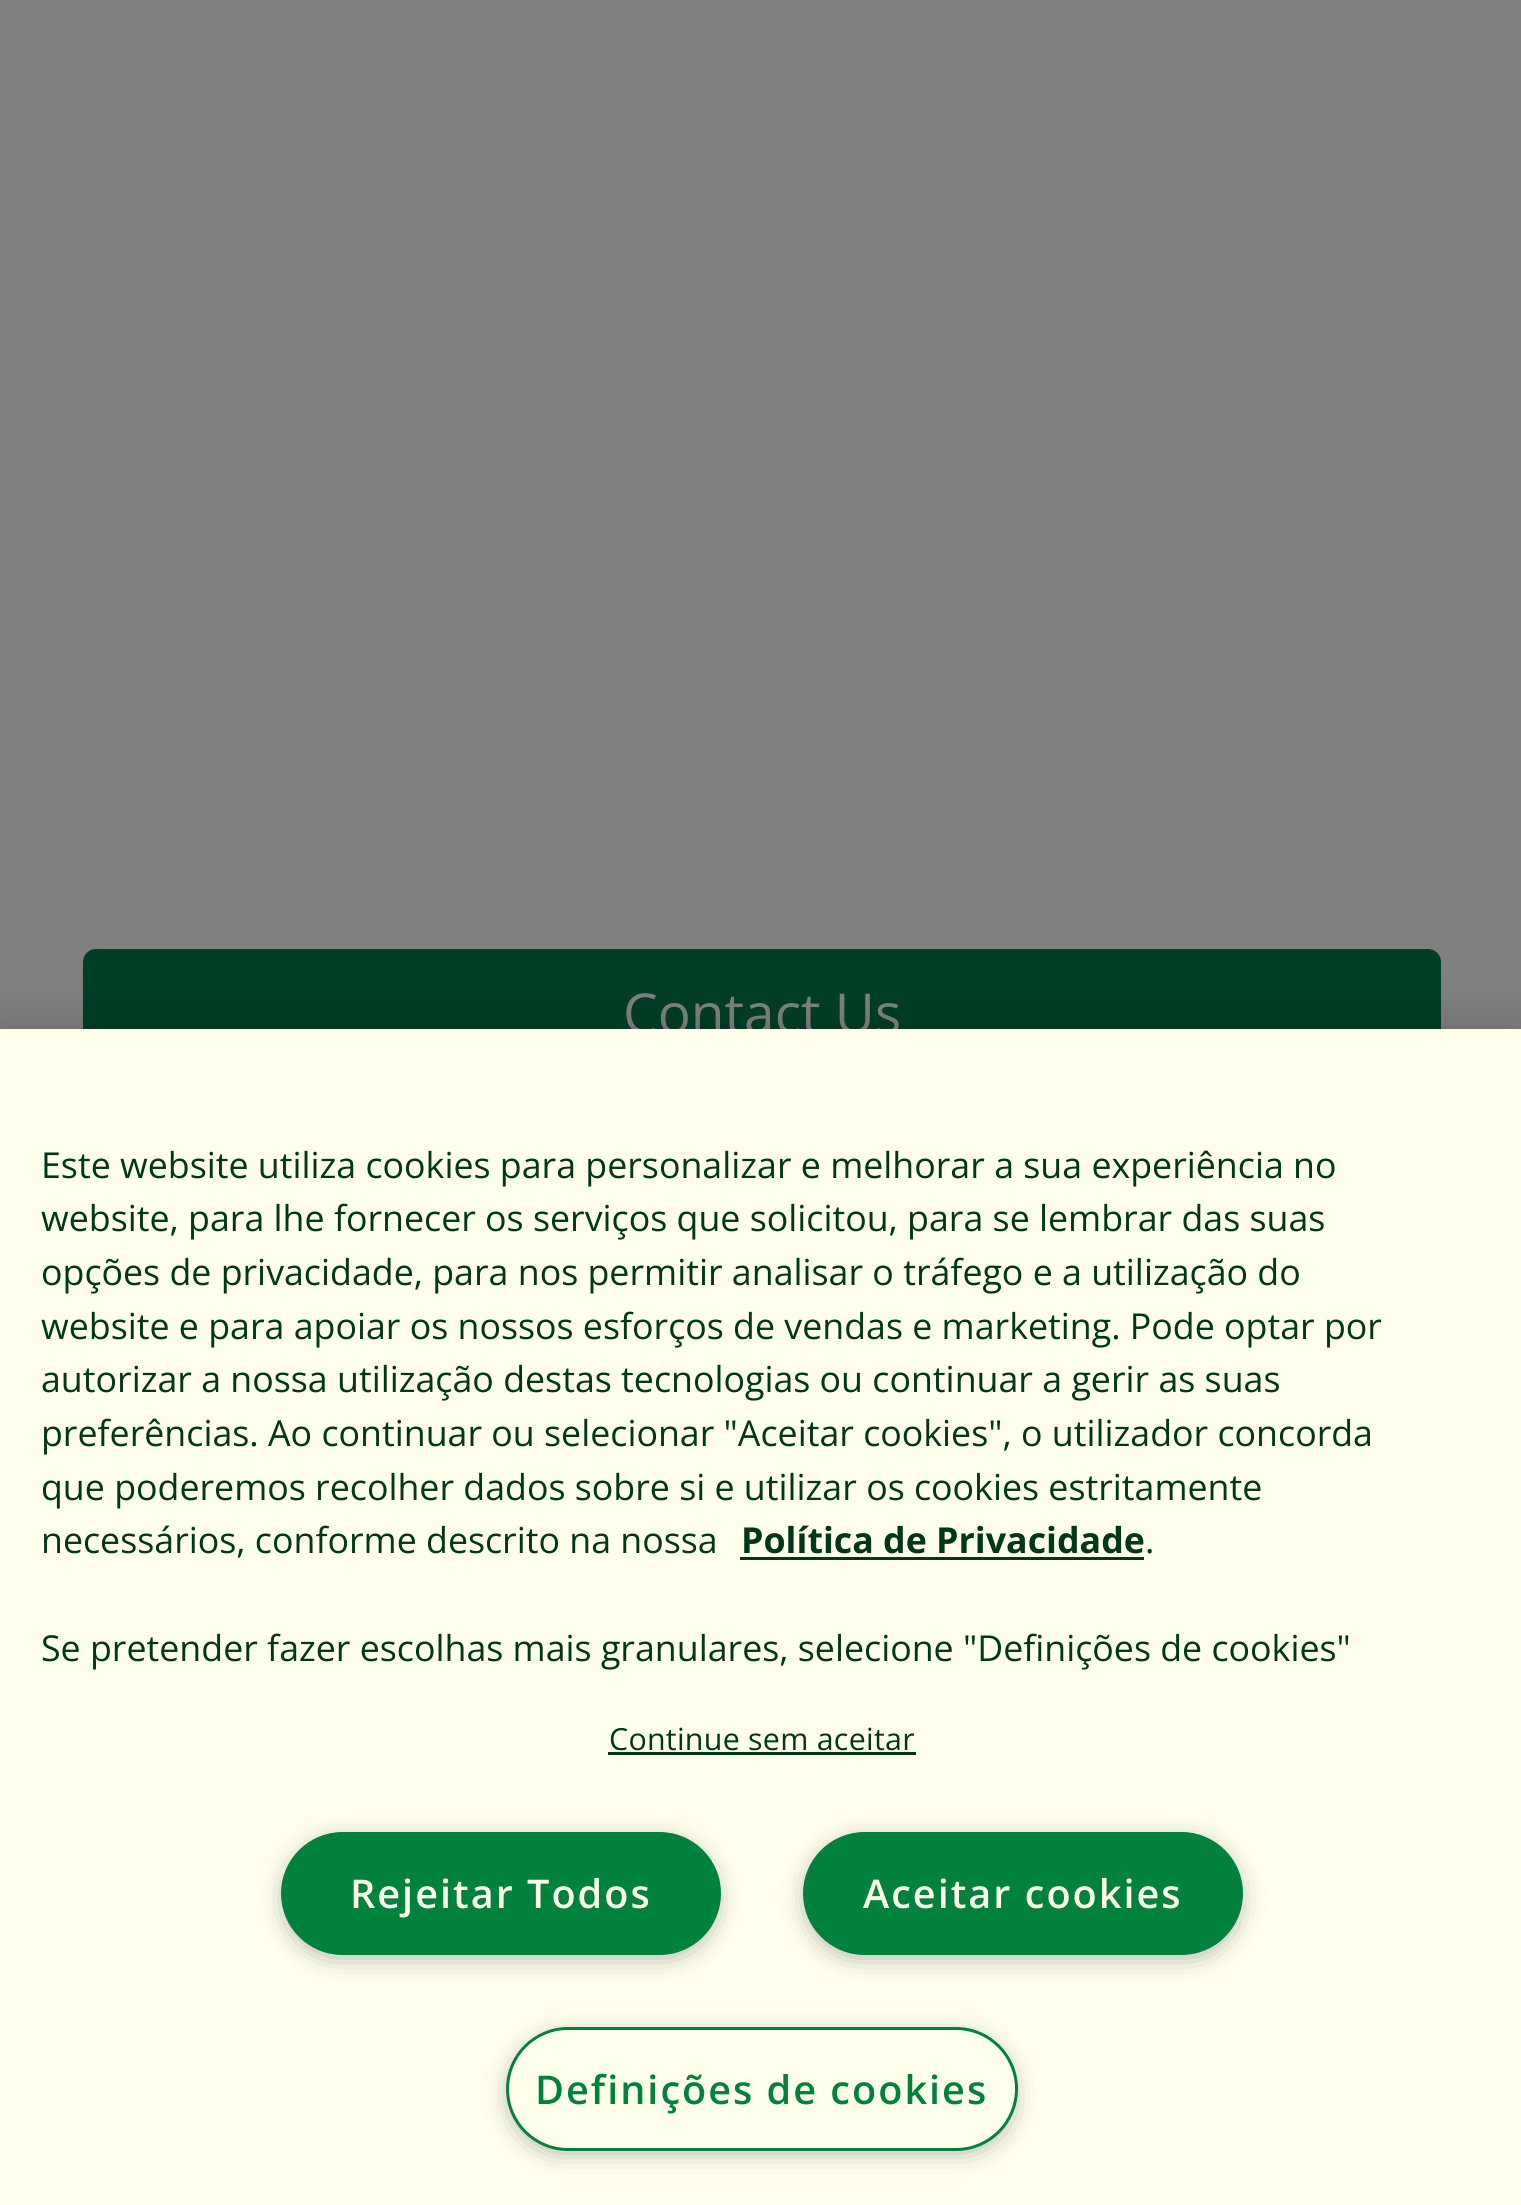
#include <cairo.h>
#include <math.h>
#include <stddef.h>

static cairo_t *c;
static void C(unsigned color){cairo_set_source_rgb(c, (color >> 16) / 255.0, (color >> 8 & 255) / 255.0, (color & 255) / 255.0);}
static void F(const char *family, double size, int italic, int bold){cairo_select_font_face(c, family, italic ? CAIRO_FONT_SLANT_ITALIC : CAIRO_FONT_SLANT_NORMAL,bold ? CAIRO_FONT_WEIGHT_BOLD : CAIRO_FONT_WEIGHT_NORMAL);cairo_set_font_size(c, size);}
static void T(double x, double y, const char *s){cairo_move_to(c, x, y);cairo_show_text(c, s);}
static void L(double x, double y, const char *s, double letter, double word){cairo_move_to(c, x, y);while (*s) {char ch[5] = {0};int n = 0;do ch[n++] = *s++; while ((*s & 0xC0) == 0x80);cairo_show_text(c, ch);cairo_rel_move_to(c, letter + word * (*ch == ' '), 0);}}
static void R(double x, double y, double w, double h){cairo_rectangle(c, x, y, w, h);cairo_fill(c);}
static void Q(double x, double y, double w, double h, double r){cairo_new_sub_path(c);cairo_arc(c, x + w - r, y + h - r, r, 0, M_PI / 2);cairo_arc(c, x + r, y + h - r, r, M_PI / 2, M_PI);cairo_arc(c, x + r, y + r, r, M_PI, 1.5 * M_PI);cairo_arc(c, x + w - r, y + r, r, 1.5 * M_PI, 2 * M_PI);cairo_close_path(c);}
static void S(double x, double y, double w, double h, double r, double blur, double alpha){cairo_push_group_with_content(c, CAIRO_CONTENT_ALPHA);cairo_set_operator(c, CAIRO_OPERATOR_SOURCE);for (int i = 15; i >= -15 && fmin(w, h) + blur * i / 3 > 0; i -= 2) {double e = blur * i / 6;cairo_set_source_rgba(c, 0, 0, 0, alpha * erfc((i - 1) / 8.5) / 2);Q(x - e, y - e, w + 2 * e, h + 2 * e, fmax(0, fmin(r + e + blur * .6, fmin(w, h) / 2 + e)));cairo_fill(c);}cairo_pattern_t *soft = cairo_pop_group(c);cairo_mask(c, soft);cairo_pattern_destroy(soft);}
int main(void) {
cairo_surface_t *surface = cairo_image_surface_create(CAIRO_FORMAT_RGB24, 1521, 2205);
c = cairo_create(surface);
cairo_font_options_t *options = cairo_font_options_create();
cairo_font_options_set_hint_metrics(options, CAIRO_HINT_METRICS_OFF);
cairo_font_options_set_hint_style(options, CAIRO_HINT_STYLE_NONE);
cairo_set_font_options(c, options);
cairo_set_miter_limit(c, 4);
C(0x808080);
cairo_paint(c);
C(0x003e26);
Q(80,946,1364,135,16);
cairo_fill_preserve(c);
C(0x808080);
cairo_set_line_width(c,6);
cairo_stroke(c);
F("Open Sans",55,0,0);
T(623,1033,"Contact Us");
C(0x000000);
S(0,1029,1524,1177,0,25,.2);
C(0xffffeb);
R(0,1029,1521,1176);
F("Open Sans",35.75,0,0);
C(0x003719);
T(41,1178,"Este website utiliza cookies para personalizar e melhorar a sua experiência no");
T(41,1231,"website, para lhe fornecer os serviços que solicitou, para se lembrar das suas");
T(41,1285,"opções de privacidade, para nos permitir analisar o tráfego e a utilização do");
T(41,1339,"website e para apoiar os nossos esforços de vendas e marketing. Pode optar por");
T(41,1392,"autorizar a nossa utilização destas tecnologias ou continuar a gerir as suas");
T(41,1446,"preferências. Ao continuar ou selecionar \"Aceitar cookies\", o utilizador concorda");
T(41,1500,"que poderemos recolher dados sobre si e utilizar os cookies estritamente");
T(41,1553,"necessários, conforme descrito na nossa");
F("Open Sans",35.75,0,1);
T(741,1553,"Política de Privacidade");
R(740,1557,404,3);
F("Open Sans",35.75,0,0);
T(1145,1553,".");
T(41,1661,"Se pretender fazer escolhas mais granulares, selecione \"Definições de cookies\"");
F("Open Sans",30.4,0,0);
L(609,1750,"Continue sem aceitar",.25,0);
R(608,1752,308,3);
C(0x999999);
S(289,1845,423,108,54,14,1);
C(0x00823c);
Q(282.5,1833.5,437,120,60);
cairo_fill_preserve(c);
cairo_set_line_width(c,3);
cairo_stroke(c);
F("Open Sans SemiBold",39.6,0,0);
C(0xffffeb);
L(350,1908,"Rejeitar Todos",2,0);
C(0x999999);
S(811,1845,424,108,54,14,1);
C(0x00823c);
Q(804.5,1833.5,437,120,60);
cairo_fill_preserve(c);
cairo_stroke(c);
C(0xffffeb);
L(863,1908,"Aceitar cookies",2,0);
C(0x999999);
S(514,2041,495,107,53.5,14,1);
C(0xffffeb);
Q(507.5,2028.5,509,121,60.5);
cairo_fill_preserve(c);
C(0x00823c);
cairo_stroke(c);
L(535,2104,"Definições de cookies",2,0);
cairo_surface_write_to_png(surface, "o.png");
cairo_font_options_destroy(options);
cairo_destroy(c);
cairo_surface_destroy(surface);
return 0;
}
